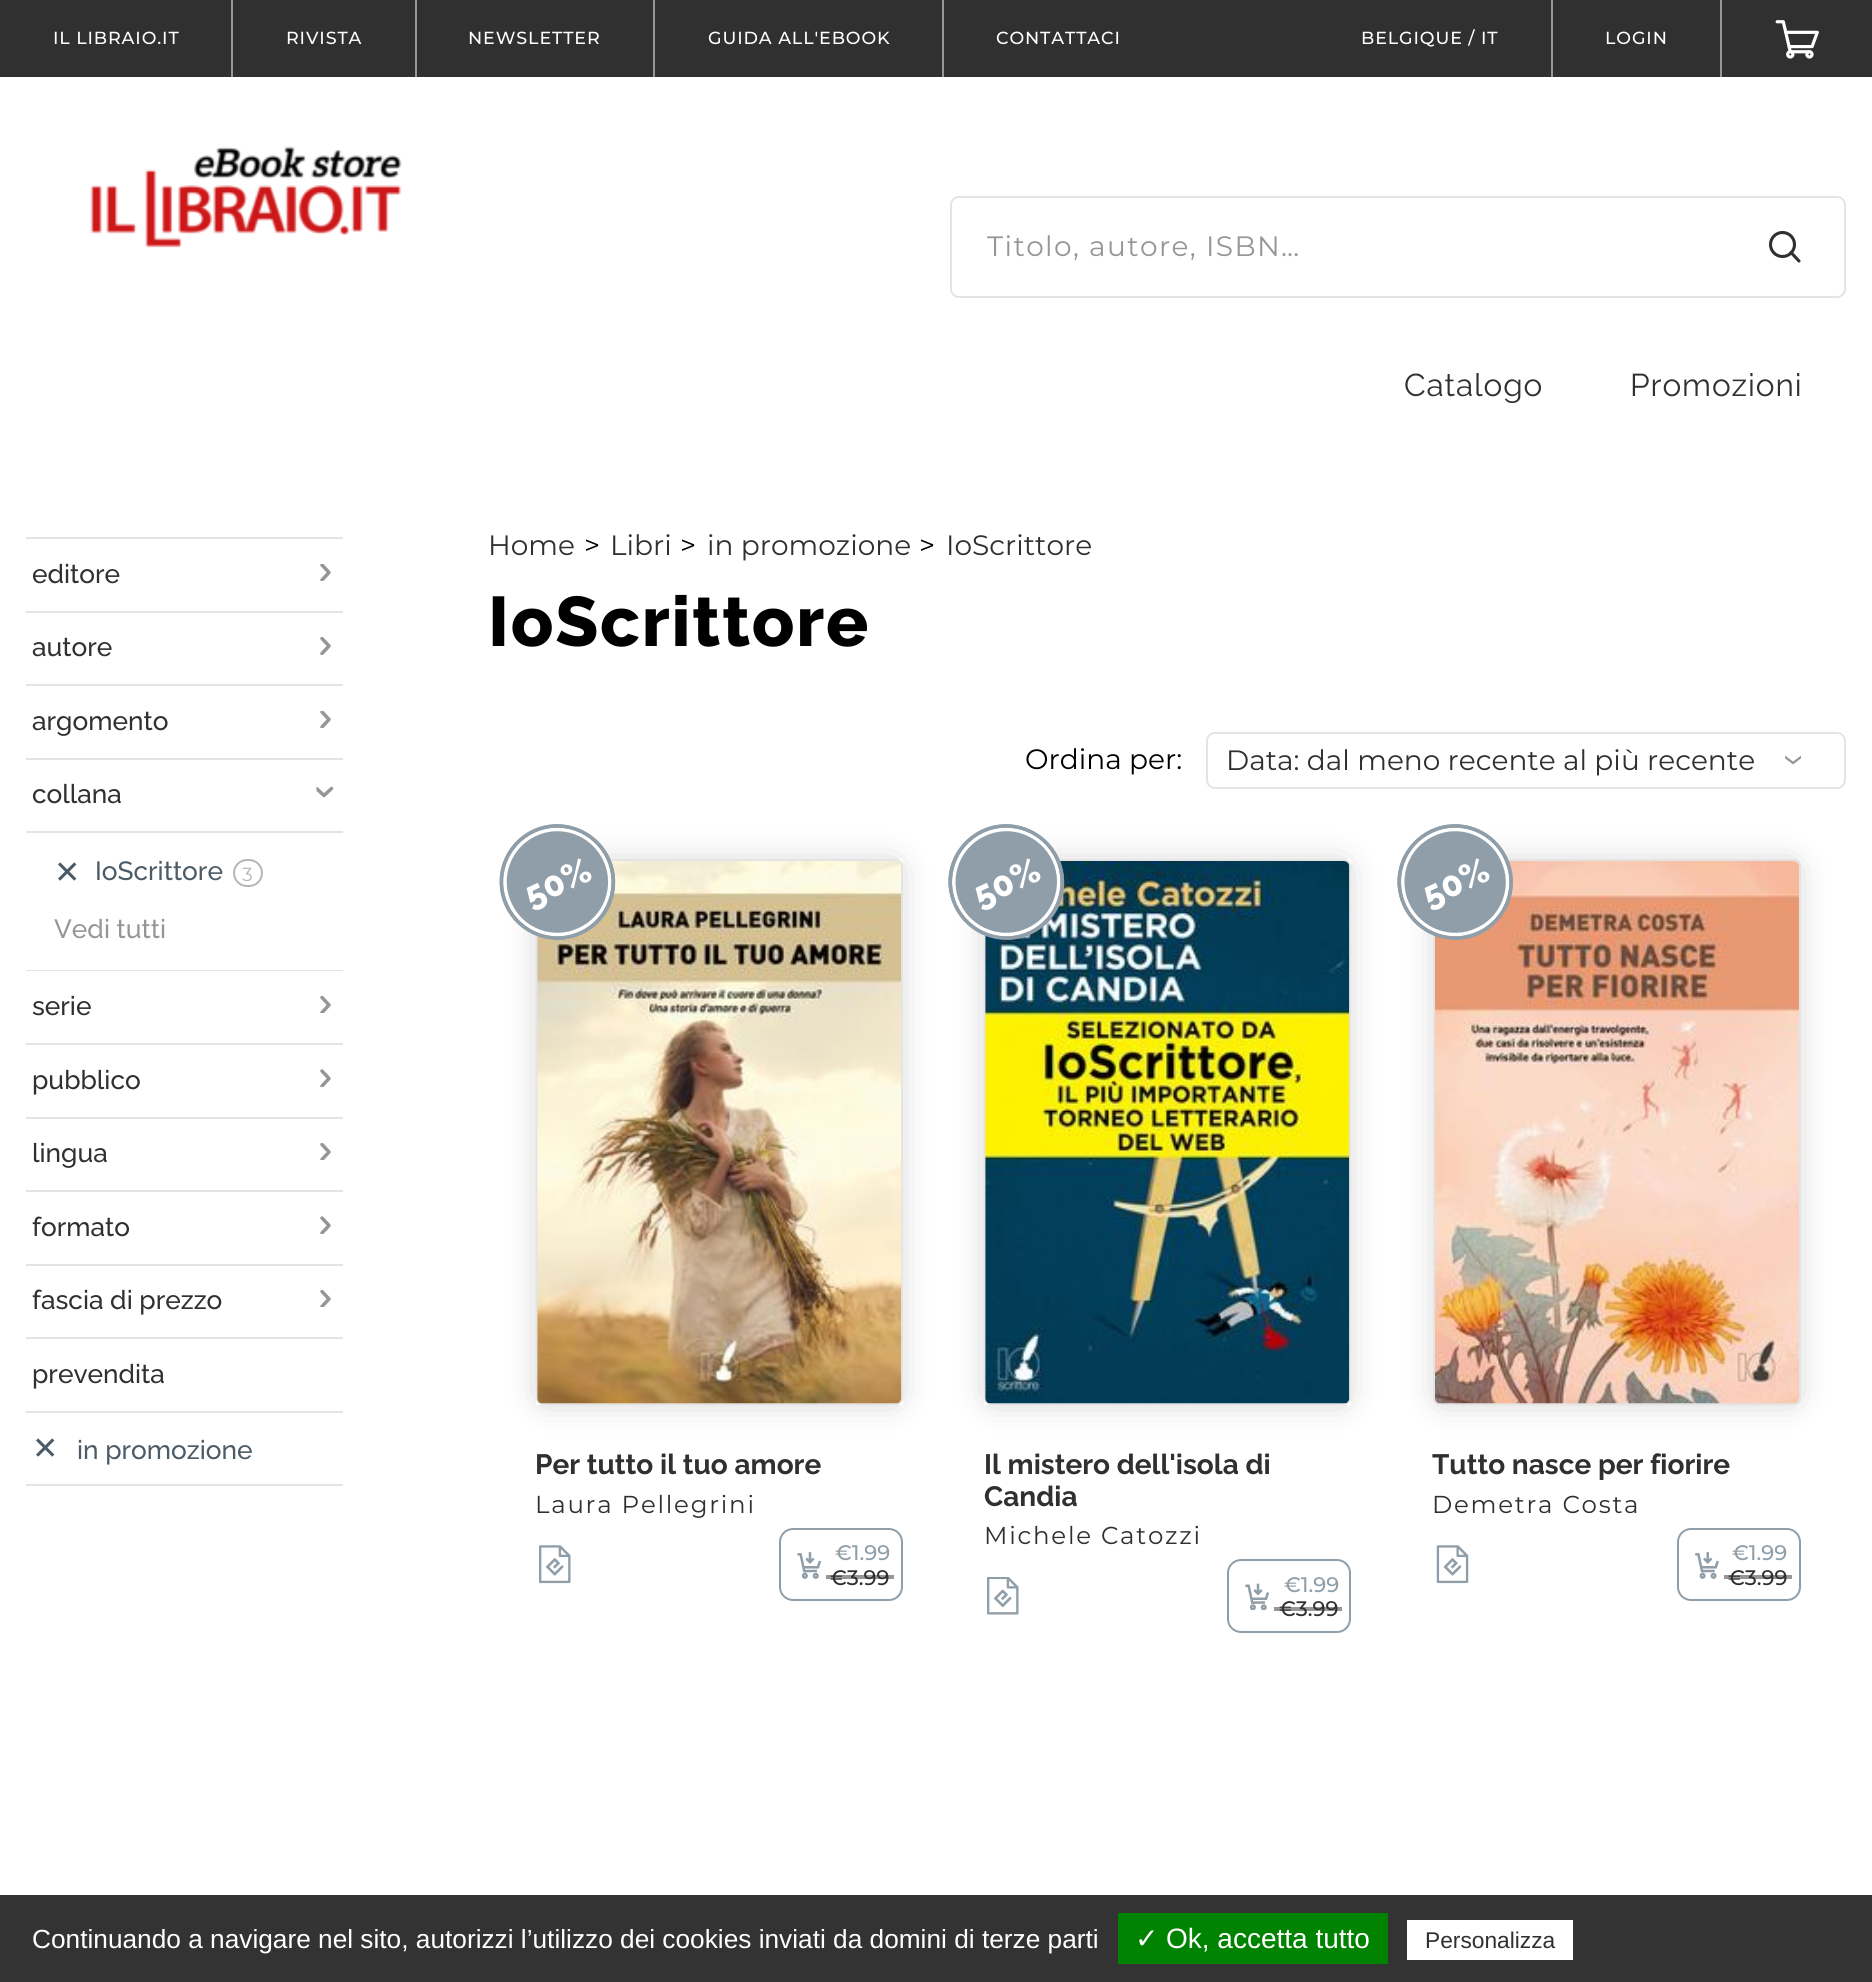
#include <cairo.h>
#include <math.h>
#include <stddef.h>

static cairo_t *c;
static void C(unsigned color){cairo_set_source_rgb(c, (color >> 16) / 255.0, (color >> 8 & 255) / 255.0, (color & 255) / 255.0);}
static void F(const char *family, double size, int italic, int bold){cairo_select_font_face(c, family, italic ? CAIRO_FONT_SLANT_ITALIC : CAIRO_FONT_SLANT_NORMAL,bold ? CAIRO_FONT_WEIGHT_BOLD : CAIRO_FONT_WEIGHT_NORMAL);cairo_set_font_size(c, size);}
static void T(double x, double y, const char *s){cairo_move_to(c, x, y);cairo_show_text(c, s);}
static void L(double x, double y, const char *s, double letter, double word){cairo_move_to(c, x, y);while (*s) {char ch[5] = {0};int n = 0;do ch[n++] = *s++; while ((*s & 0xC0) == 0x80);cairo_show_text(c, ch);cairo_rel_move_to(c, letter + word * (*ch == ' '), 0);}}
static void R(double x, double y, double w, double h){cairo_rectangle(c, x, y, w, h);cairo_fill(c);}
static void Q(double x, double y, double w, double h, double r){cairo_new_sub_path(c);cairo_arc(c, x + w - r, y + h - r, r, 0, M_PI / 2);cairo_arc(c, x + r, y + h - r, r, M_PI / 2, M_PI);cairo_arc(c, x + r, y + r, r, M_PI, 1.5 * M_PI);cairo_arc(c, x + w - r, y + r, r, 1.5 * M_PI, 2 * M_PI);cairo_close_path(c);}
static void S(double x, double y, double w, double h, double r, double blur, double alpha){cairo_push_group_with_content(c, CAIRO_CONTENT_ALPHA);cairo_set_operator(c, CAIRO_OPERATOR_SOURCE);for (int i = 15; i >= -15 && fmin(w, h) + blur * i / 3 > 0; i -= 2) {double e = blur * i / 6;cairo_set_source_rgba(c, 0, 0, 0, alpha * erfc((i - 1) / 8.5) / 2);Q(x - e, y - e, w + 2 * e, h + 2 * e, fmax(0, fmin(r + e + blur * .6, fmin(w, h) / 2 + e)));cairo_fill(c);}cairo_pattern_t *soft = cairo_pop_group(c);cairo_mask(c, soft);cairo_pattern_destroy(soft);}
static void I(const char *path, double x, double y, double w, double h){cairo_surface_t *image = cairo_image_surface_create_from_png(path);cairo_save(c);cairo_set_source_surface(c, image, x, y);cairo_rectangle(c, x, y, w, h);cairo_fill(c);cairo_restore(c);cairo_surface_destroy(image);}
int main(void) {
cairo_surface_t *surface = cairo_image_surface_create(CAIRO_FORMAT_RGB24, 1872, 1982);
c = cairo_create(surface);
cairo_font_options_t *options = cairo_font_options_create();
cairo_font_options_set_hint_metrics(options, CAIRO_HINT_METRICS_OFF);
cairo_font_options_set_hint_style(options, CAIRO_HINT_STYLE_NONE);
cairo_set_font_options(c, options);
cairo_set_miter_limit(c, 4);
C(0xffffff);
cairo_paint(c);
C(0x303030);
R(0,0,1872,77);
F("Montserrat Medium",17.5,0,0);
C(0xffffff);
L(53,44,"IL LIBRAIO.IT",.9,0);
C(0x969696);
R(231,0,2,77);
C(0xffffff);
L(286,44,"RIVISTA",.9,0);
C(0x969696);
R(415,0,2,77);
C(0xffffff);
L(468,44,"NEWSLETTER",.9,0);
C(0x969696);
R(653,0,2,77);
C(0xffffff);
L(708,44,"GUIDA ALL'EBOOK",.9,0);
C(0x969696);
R(942,0,2,77);
C(0xffffff);
L(996,44,"CONTATTACI",.9,0);
L(1361,44,"BELGIQUE / IT",.9,0);
C(0x969696);
R(1551,0,2,77);
C(0xffffff);
L(1605,44,"LOGIN",.9,0);
C(0x969696);
R(1720,0,2,77);
I("1.png",1775,20,44,39);
I("2.png",90,146,312,102);
Q(951,197,894,100,8);
C(0xe4e4e4);
cairo_stroke(c);
F("Montserrat",28,0,0);
C(0x969696);
L(987,256,"Titolo, autore, ISBN…",1.4,0);
cairo_new_path(c);
cairo_arc(c,1782.5,244.5,12,0,2 * M_PI);
C(0x303030);
cairo_set_line_width(c,3.1);
cairo_stroke(c);
cairo_new_path(c);
cairo_move_to(c,1799,261);
cairo_line_to(c,1791,252.5);
cairo_set_line_cap(c,CAIRO_LINE_CAP_ROUND);
cairo_set_line_join(c,CAIRO_LINE_JOIN_ROUND);
cairo_stroke(c);
F("Raleway",31.5,0,0);
L(1404,396,"Catalogo",.9,0);
L(1630,396,"Promozioni",.9,0);
C(0xe4e4e4);
R(26,537,317,2);
R(26,611,317,2);
F("Raleway Medium",26.25,0,0);
C(0x303030);
T(32,583,"editore");
cairo_save(c);
cairo_rectangle(c,317,564,17,17);
cairo_clip(c);
cairo_new_path(c);
cairo_move_to(c,322,565);
cairo_line_to(c,329,572.5);
cairo_line_to(c,322,580);
C(0x969696);
cairo_set_line_width(c,3.5);
cairo_stroke(c);
cairo_restore(c);
C(0xe4e4e4);
R(26,684,317,2);
C(0x303030);
T(32,656,"autore");
cairo_save(c);
cairo_rectangle(c,317,637,17,18);
cairo_clip(c);
cairo_new_path(c);
cairo_move_to(c,322,638.5);
cairo_line_to(c,329,646);
cairo_line_to(c,322,653.5);
C(0x969696);
cairo_set_line_width(c,3.5);
cairo_stroke(c);
cairo_restore(c);
C(0xe4e4e4);
R(26,758,317,2);
C(0x303030);
T(32,730,"argomento");
cairo_save(c);
cairo_rectangle(c,317,711,17,17);
cairo_clip(c);
cairo_new_path(c);
cairo_move_to(c,322,712);
cairo_line_to(c,329,719.5);
cairo_line_to(c,322,727);
C(0x969696);
cairo_set_line_width(c,3.5);
cairo_stroke(c);
cairo_restore(c);
C(0xe4e4e4);
R(26,831,317,2);
C(0x303030);
T(32,803,"collana");
cairo_save(c);
cairo_new_path(c);
cairo_move_to(c,334,783);
cairo_line_to(c,334,800.5);
cairo_line_to(c,316.5,800.5);
cairo_line_to(c,316.5,783);
cairo_close_path(c);
cairo_clip(c);
cairo_new_path(c);
cairo_move_to(c,331.5,788.5);
cairo_line_to(c,324,795.5);
cairo_line_to(c,316.5,788.5);
C(0x969696);
cairo_set_line_width(c,3.5);
cairo_stroke(c);
cairo_restore(c);
C(0xe4e4e4);
R(26,970,317,1);
F("DejaVu Sans",31.5,0,0);
C(0x4c5b65);
T(54,883,"✕");
F("Raleway Medium",26.25,0,0);
T(95,880,"IoScrittore");
Q(234,860,28,26,13);
C(0xb6b6b6);
cairo_set_line_width(c,2);
cairo_set_line_cap(c,CAIRO_LINE_CAP_BUTT);
cairo_set_line_join(c,CAIRO_LINE_JOIN_MITER);
cairo_stroke(c);
F("Montserrat",19,0,0);
T(242,881,"3");
F("Raleway Medium",26.25,0,0);
C(0x969696);
T(54,938,"Vedi tutti");
C(0xe4e4e4);
R(26,1043,317,2);
C(0x303030);
T(32,1015,"serie");
cairo_save(c);
cairo_rectangle(c,317,996,17,17);
cairo_clip(c);
cairo_new_path(c);
cairo_move_to(c,322,997.5);
cairo_line_to(c,329,1005);
cairo_line_to(c,322,1012.5);
C(0x969696);
cairo_set_line_width(c,3.5);
cairo_set_line_cap(c,CAIRO_LINE_CAP_ROUND);
cairo_set_line_join(c,CAIRO_LINE_JOIN_ROUND);
cairo_stroke(c);
cairo_restore(c);
C(0xe4e4e4);
R(26,1117,317,2);
C(0x303030);
T(32,1089,"pubblico");
cairo_save(c);
cairo_rectangle(c,317,1069,17,18);
cairo_clip(c);
cairo_new_path(c);
cairo_move_to(c,322,1071);
cairo_line_to(c,329,1078.5);
cairo_line_to(c,322,1086);
C(0x969696);
cairo_set_line_width(c,3.5);
cairo_set_line_cap(c,CAIRO_LINE_CAP_ROUND);
cairo_set_line_join(c,CAIRO_LINE_JOIN_ROUND);
cairo_stroke(c);
cairo_restore(c);
C(0xe4e4e4);
R(26,1190,317,2);
C(0x303030);
T(32,1162,"lingua");
cairo_save(c);
cairo_rectangle(c,317,1143,17,17);
cairo_clip(c);
cairo_new_path(c);
cairo_move_to(c,322,1144.5);
cairo_line_to(c,329,1152);
cairo_line_to(c,322,1159.5);
C(0x969696);
cairo_set_line_width(c,3.5);
cairo_set_line_cap(c,CAIRO_LINE_CAP_ROUND);
cairo_set_line_join(c,CAIRO_LINE_JOIN_ROUND);
cairo_stroke(c);
cairo_restore(c);
C(0xe4e4e4);
R(26,1264,317,2);
C(0x303030);
T(32,1236,"formato");
cairo_save(c);
cairo_rectangle(c,317,1216,17,18);
cairo_clip(c);
cairo_new_path(c);
cairo_move_to(c,322,1218);
cairo_line_to(c,329,1225.5);
cairo_line_to(c,322,1233);
C(0x969696);
cairo_set_line_width(c,3.5);
cairo_set_line_cap(c,CAIRO_LINE_CAP_ROUND);
cairo_set_line_join(c,CAIRO_LINE_JOIN_ROUND);
cairo_stroke(c);
cairo_restore(c);
C(0xe4e4e4);
R(26,1337,317,2);
C(0x303030);
T(32,1309,"fascia di prezzo");
cairo_save(c);
cairo_rectangle(c,317,1290,17,17);
cairo_clip(c);
cairo_new_path(c);
cairo_move_to(c,322,1291.5);
cairo_line_to(c,329,1299);
cairo_line_to(c,322,1306.5);
C(0x969696);
cairo_set_line_width(c,3.5);
cairo_set_line_cap(c,CAIRO_LINE_CAP_ROUND);
cairo_set_line_join(c,CAIRO_LINE_JOIN_ROUND);
cairo_stroke(c);
cairo_restore(c);
C(0xe4e4e4);
R(26,1411,317,2);
C(0x303030);
T(32,1383,"prevendita");
C(0xe4e4e4);
R(26,1484,317,2);
F("DejaVu Sans",31.5,0,0);
C(0x4c5b65);
T(32,1459,"✕");
F("Raleway Medium",26.25,0,0);
T(77,1459,"in promozione");
F("Montserrat",28,0,0);
C(0x303030);
T(488,555,"Home");
C(0x000000);
T(584,555,">");
C(0x303030);
T(610,555,"Libri");
C(0x000000);
T(680,555,">");
C(0x303030);
T(707,555,"in promozione");
C(0x000000);
T(919,555,">");
C(0x303030);
T(946,555,"IoScrittore");
F("Raleway ExtraBold",70,0,0);
C(0x000000);
L(488,646,"IoScrittore",1.75,0);
F("Montserrat",28,0,0);
T(1025,769,"Ordina per:");
Q(1207,733,638,55,8);
C(0xe4e4e4);
cairo_stroke(c);
C(0x303030);
T(1226,770,"Data: dal meno recente al più recente");
F("Montserrat",42,0,0);
C(0x969696);
cairo_save(c);
cairo_translate(c,1782,754);
cairo_rotate(c,90 * M_PI / 180);
T(0,0,"›");
cairo_restore(c);
cairo_save(c);
cairo_set_fill_rule(c,CAIRO_FILL_RULE_EVEN_ODD);
cairo_new_path(c);
cairo_move_to(c,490,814);
cairo_line_to(c,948,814);
cairo_line_to(c,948,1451);
cairo_line_to(c,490,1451);
cairo_close_path(c);
cairo_move_to(c,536,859);
cairo_line_to(c,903,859);
cairo_line_to(c,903,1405);
cairo_line_to(c,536,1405);
cairo_close_path(c);
cairo_clip(c);
C(0x000000);
S(544,868,350,529,0,17.5,.25);
cairo_restore(c);
Q(537,860,365,544,6);
C(0xe4e4e4);
cairo_stroke(c);
I("3.png",537,861,365,543);
C(0x8f9ea8);
cairo_new_path(c);
cairo_move_to(c,533,830);
cairo_curve_to(c,562,816,596,829,610,858);
cairo_curve_to(c,623,887,611,921,582,934);
cairo_curve_to(c,553,948,519,935,505,906);
cairo_curve_to(c,492,877,504,843,533,830);
cairo_close_path(c);
cairo_fill(c);
cairo_new_path(c);
cairo_move_to(c,535,834.5);
cairo_curve_to(c,561.5,822,592.5,833.5,605,860);
cairo_curve_to(c,617,886,606,917.5,579.5,929.5);
cairo_curve_to(c,553.5,942,522,930.5,510,904);
cairo_curve_to(c,497.5,878,509,846.5,535,834.5);
cairo_close_path(c);
C(0xffffff);
cairo_set_line_width(c,3.5);
cairo_stroke(c);
cairo_new_path(c);
cairo_move_to(c,533.5,831);
cairo_curve_to(c,561.5,818,595,830.5,608,858.5);
cairo_curve_to(c,621,886.5,609,919.5,581,933);
cairo_curve_to(c,553,946,519.5,933.5,506.5,905.5);
cairo_curve_to(c,493.5,877.5,505.5,844.5,533.5,831);
cairo_close_path(c);
C(0x8f9ea8);
cairo_stroke(c);
F("Raleway ExtraBold",35,0,0);
C(0xffffff);
cairo_save(c);
cairo_translate(c,531,908);
cairo_rotate(c,-25 * M_PI / 180);
T(0,0,"50%");
cairo_restore(c);
F("Raleway",28,0,1);
C(0x303030);
T(535,1474,"Per tutto il tuo amore");
F("Montserrat",24.5,0,0);
L(535,1513,"Laura Pellegrini",1.75,0);
I("4.png",539,1545,32,39);
Q(780,1529,122,71,13);
C(0x8f9ea8);
cairo_set_line_width(c,2);
cairo_stroke(c);
I("5.png",797,1552,25,27);
F("Montserrat Medium",21,0,0);
T(835,1560,"€1.99");
C(0x303030);
T(830,1585,"€3.99");
cairo_set_source_rgba(c,0.188,0.188,0.188,0.5);
R(826,1575,68,4);
cairo_save(c);
cairo_set_fill_rule(c,CAIRO_FILL_RULE_EVEN_ODD);
cairo_new_path(c);
cairo_move_to(c,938,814);
cairo_line_to(c,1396,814);
cairo_line_to(c,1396,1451);
cairo_line_to(c,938,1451);
cairo_close_path(c);
cairo_move_to(c,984,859);
cairo_line_to(c,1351,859);
cairo_line_to(c,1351,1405);
cairo_line_to(c,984,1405);
cairo_close_path(c);
cairo_clip(c);
C(0x000000);
S(992,868,350,529,0,17.5,.25);
cairo_restore(c);
Q(985,860,365,544,6);
C(0xe4e4e4);
cairo_stroke(c);
I("6.png",985,861,365,543);
C(0x8f9ea8);
cairo_new_path(c);
cairo_move_to(c,982,830);
cairo_curve_to(c,1011,816,1045,829,1059,858);
cairo_curve_to(c,1072,887,1060,921,1031,934);
cairo_curve_to(c,1002,948,967,935,954,906);
cairo_curve_to(c,940,877,953,843,982,830);
cairo_close_path(c);
cairo_fill(c);
cairo_new_path(c);
cairo_move_to(c,984,834.5);
cairo_curve_to(c,1010.5,822,1041.5,833.5,1054,860);
cairo_curve_to(c,1066,886,1054.5,917.5,1028.5,929.5);
cairo_curve_to(c,1002,942,971,930.5,958.5,904);
cairo_curve_to(c,946.5,878,958,846.5,984,834.5);
cairo_close_path(c);
C(0xffffff);
cairo_set_line_width(c,3.5);
cairo_stroke(c);
cairo_new_path(c);
cairo_move_to(c,982.5,831);
cairo_curve_to(c,1010.5,818,1044,830.5,1057,858.5);
cairo_curve_to(c,1070,886.5,1058,919.5,1030,933);
cairo_curve_to(c,1002,946,968.5,933.5,955.5,905.5);
cairo_curve_to(c,942.5,877.5,954.5,844.5,982.5,831);
cairo_close_path(c);
C(0x8f9ea8);
cairo_stroke(c);
F("Raleway ExtraBold",35,0,0);
C(0xffffff);
cairo_save(c);
cairo_translate(c,980,908);
cairo_rotate(c,-25 * M_PI / 180);
T(0,0,"50%");
cairo_restore(c);
F("Raleway",28,0,1);
C(0x303030);
T(984,1474,"Il mistero dell'isola di");
T(984,1506,"Candia");
F("Montserrat",24.5,0,0);
L(984,1544,"Michele Catozzi",1.75,0);
I("7.png",987,1577,32,38);
Q(1228,1560,122,72,13);
C(0x8f9ea8);
cairo_set_line_width(c,2);
cairo_stroke(c);
I("8.png",1245,1583,25,27);
F("Montserrat Medium",21,0,0);
T(1284,1592,"€1.99");
C(0x303030);
T(1279,1616,"€3.99");
cairo_set_source_rgba(c,0.188,0.188,0.188,0.5);
R(1274,1607,68,4);
C(0x000000);
S(1442,868,350,529,0,17.5,.25);
Q(1434,860,366,544,6);
C(0xe4e4e4);
cairo_stroke(c);
I("9.png",1435,861,364,543);
C(0x8f9ea8);
cairo_new_path(c);
cairo_move_to(c,1431,830);
cairo_curve_to(c,1460,816,1494,829,1507,858);
cairo_curve_to(c,1521,887,1508,921,1480,934);
cairo_curve_to(c,1451,948,1416,935,1403,906);
cairo_curve_to(c,1389,877,1402,843,1431,830);
cairo_close_path(c);
cairo_fill(c);
cairo_new_path(c);
cairo_move_to(c,1433,834.5);
cairo_curve_to(c,1459,822,1490.5,833.5,1502.5,860);
cairo_curve_to(c,1515,886,1503.5,917.5,1477.5,929.5);
cairo_curve_to(c,1451,942,1420,930.5,1407.5,904);
cairo_curve_to(c,1395.5,878,1406.5,846.5,1433,834.5);
cairo_close_path(c);
C(0xffffff);
cairo_set_line_width(c,3.5);
cairo_stroke(c);
cairo_new_path(c);
cairo_move_to(c,1431.5,831);
cairo_curve_to(c,1459.5,818,1493,830.5,1506,858.5);
cairo_curve_to(c,1519,886.5,1507,919.5,1479,933);
cairo_curve_to(c,1451,946,1417.5,933.5,1404.5,905.5);
cairo_curve_to(c,1391.5,877.5,1403.5,844.5,1431.5,831);
cairo_close_path(c);
C(0x8f9ea8);
cairo_stroke(c);
F("Raleway ExtraBold",35,0,0);
C(0xffffff);
cairo_save(c);
cairo_translate(c,1429,908);
cairo_rotate(c,-25 * M_PI / 180);
T(0,0,"50%");
cairo_restore(c);
F("Raleway",28,0,1);
C(0x303030);
T(1432,1474,"Tutto nasce per fiorire");
F("Montserrat",24.5,0,0);
L(1432,1513,"Demetra Costa",1.75,0);
I("10.png",1436,1545,33,39);
Q(1678,1529,122,71,13);
C(0x8f9ea8);
cairo_set_line_width(c,2);
cairo_stroke(c);
I("11.png",1695,1552,24,27);
F("Montserrat Medium",21,0,0);
T(1732,1560,"€1.99");
C(0x303030);
T(1728,1585,"€3.99");
cairo_set_source_rgba(c,0.188,0.188,0.188,0.5);
R(1724,1575,68,4);
C(0x333333);
R(0,1895,1872,87);
F("Liberation Sans",26.25,0,0);
C(0xffffff);
T(32,1948,"Continuando a navigare nel sito, autorizzi l’utilizzo dei cookies inviati da domini di terze parti");
C(0x008300);
R(1118,1913,270,51);
F("DejaVu Sans",28,0,0);
C(0xffffff);
T(1135,1948,"✓");
F("Liberation Sans",28,0,0);
T(1166,1948,"Ok, accetta tutto");
R(1407,1920,166,40);
F("Liberation Sans",22.75,0,0);
C(0x303030);
T(1425,1948,"Personalizza");
cairo_surface_write_to_png(surface, "o.png");
cairo_font_options_destroy(options);
cairo_destroy(c);
cairo_surface_destroy(surface);
return 0;
}
